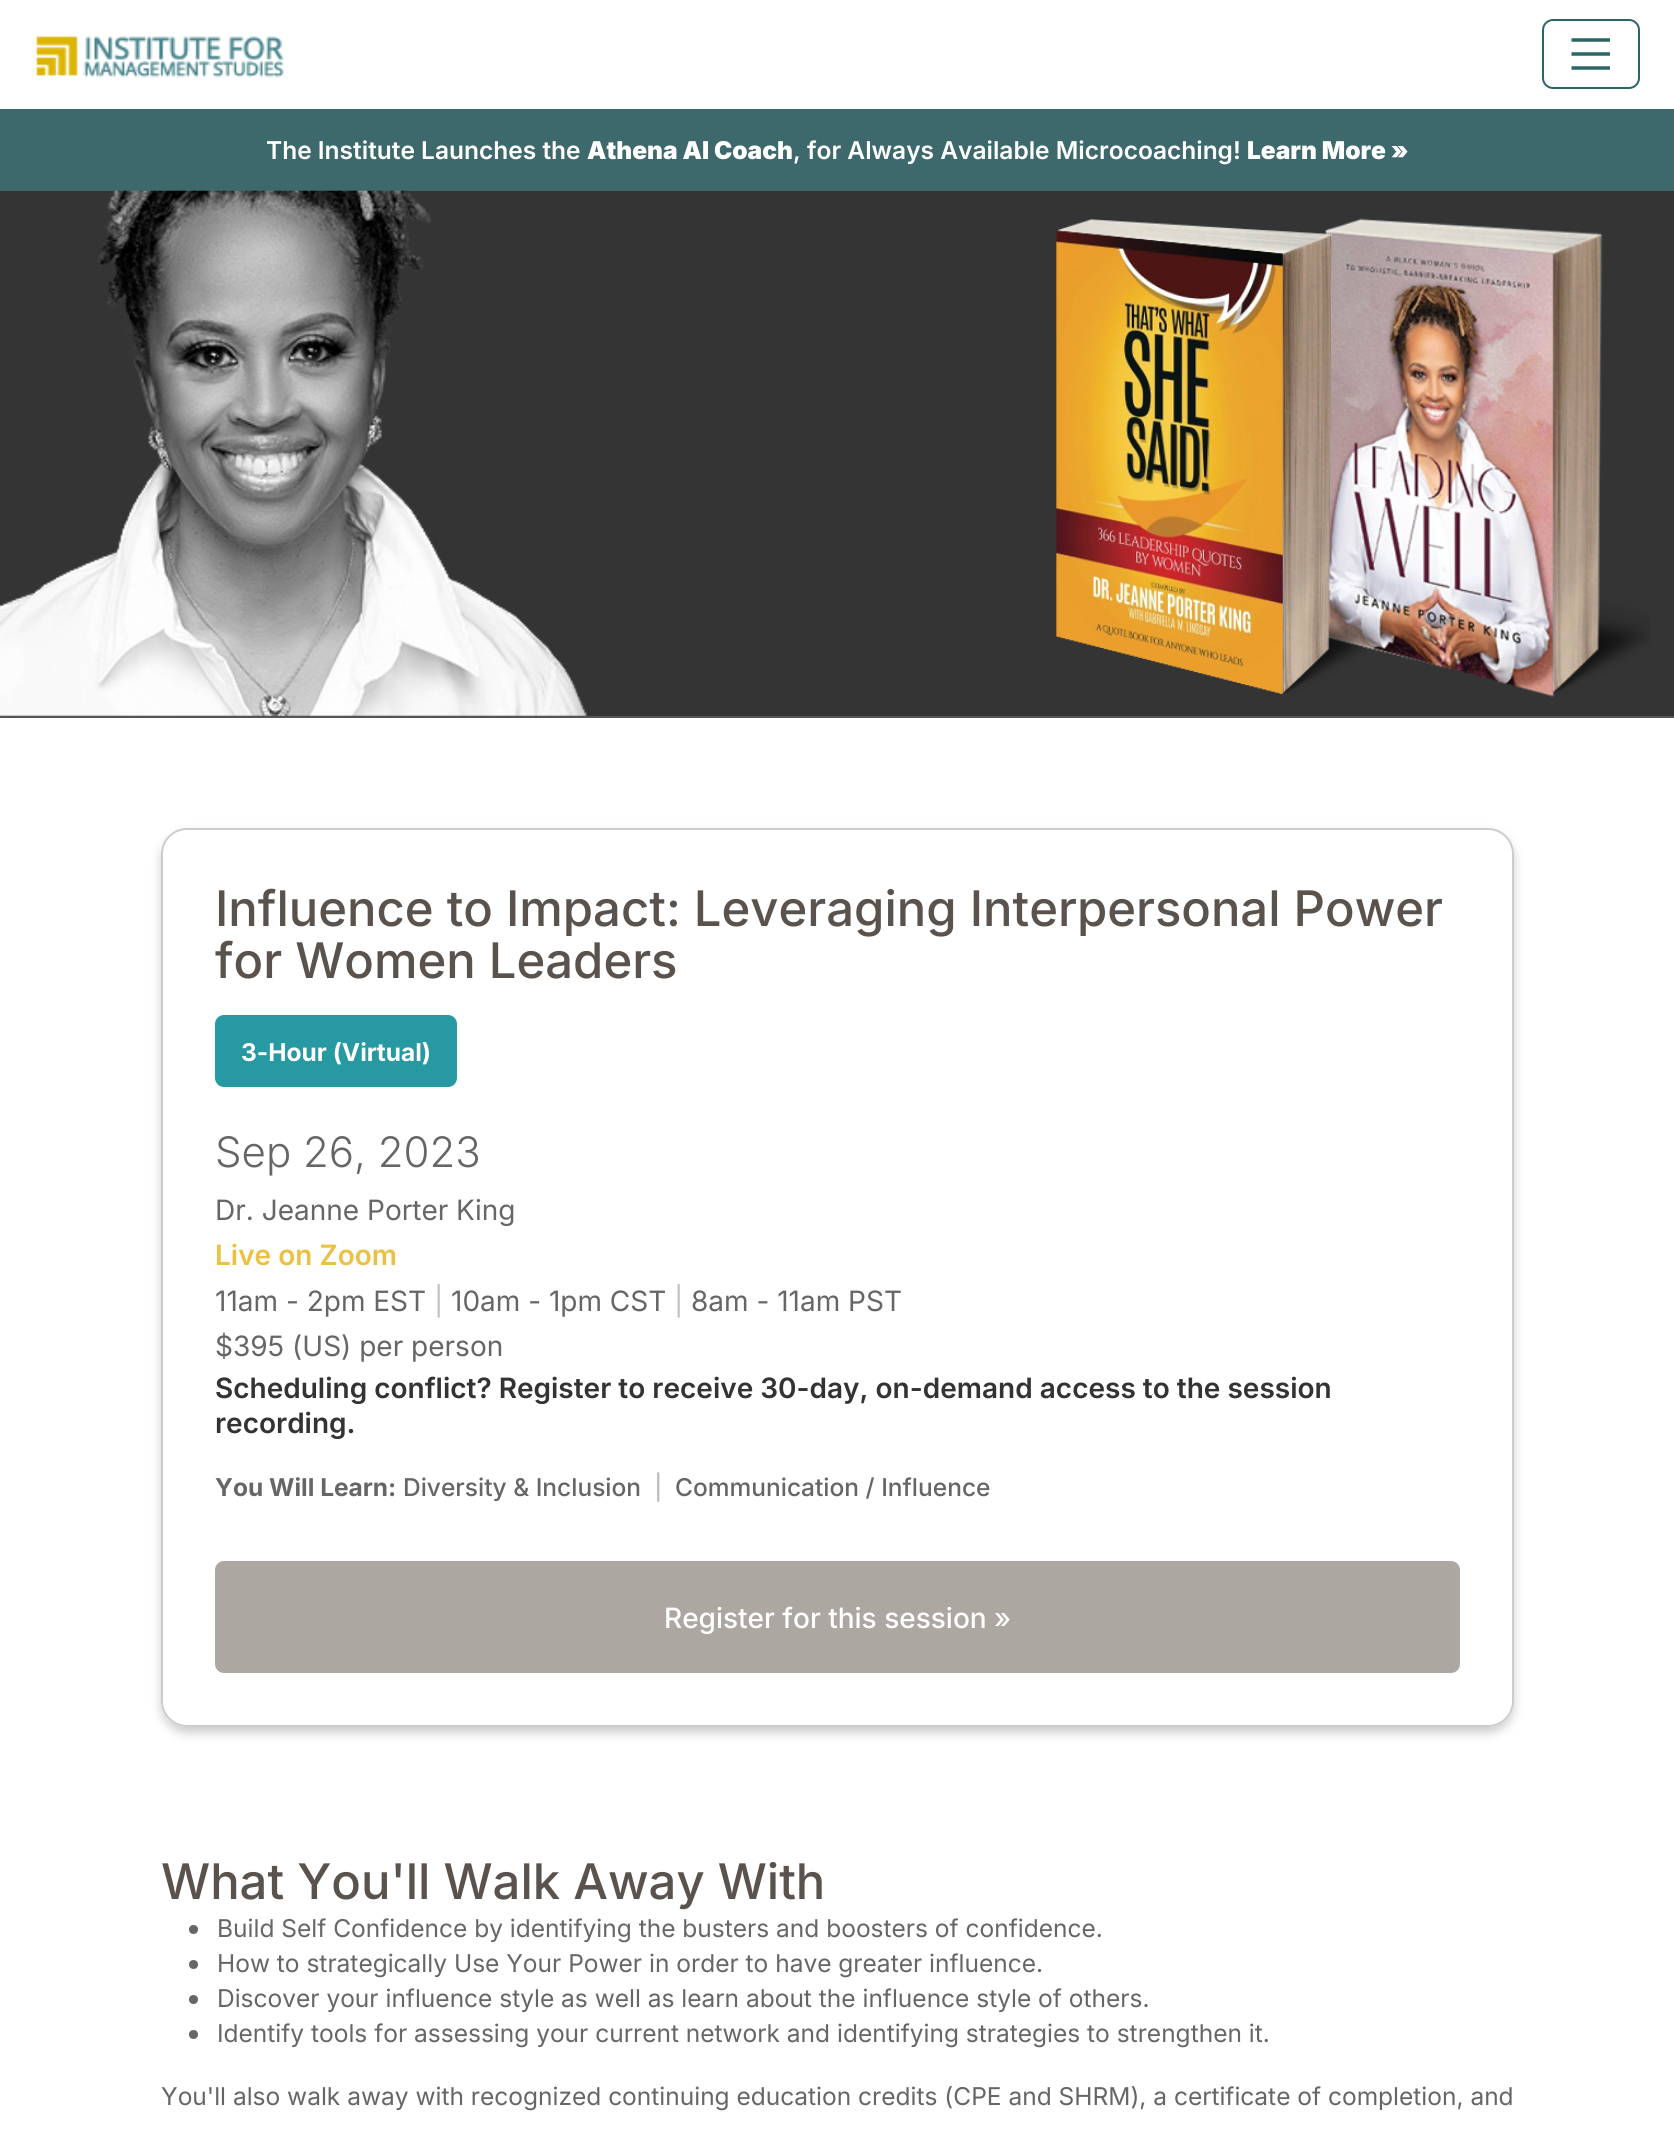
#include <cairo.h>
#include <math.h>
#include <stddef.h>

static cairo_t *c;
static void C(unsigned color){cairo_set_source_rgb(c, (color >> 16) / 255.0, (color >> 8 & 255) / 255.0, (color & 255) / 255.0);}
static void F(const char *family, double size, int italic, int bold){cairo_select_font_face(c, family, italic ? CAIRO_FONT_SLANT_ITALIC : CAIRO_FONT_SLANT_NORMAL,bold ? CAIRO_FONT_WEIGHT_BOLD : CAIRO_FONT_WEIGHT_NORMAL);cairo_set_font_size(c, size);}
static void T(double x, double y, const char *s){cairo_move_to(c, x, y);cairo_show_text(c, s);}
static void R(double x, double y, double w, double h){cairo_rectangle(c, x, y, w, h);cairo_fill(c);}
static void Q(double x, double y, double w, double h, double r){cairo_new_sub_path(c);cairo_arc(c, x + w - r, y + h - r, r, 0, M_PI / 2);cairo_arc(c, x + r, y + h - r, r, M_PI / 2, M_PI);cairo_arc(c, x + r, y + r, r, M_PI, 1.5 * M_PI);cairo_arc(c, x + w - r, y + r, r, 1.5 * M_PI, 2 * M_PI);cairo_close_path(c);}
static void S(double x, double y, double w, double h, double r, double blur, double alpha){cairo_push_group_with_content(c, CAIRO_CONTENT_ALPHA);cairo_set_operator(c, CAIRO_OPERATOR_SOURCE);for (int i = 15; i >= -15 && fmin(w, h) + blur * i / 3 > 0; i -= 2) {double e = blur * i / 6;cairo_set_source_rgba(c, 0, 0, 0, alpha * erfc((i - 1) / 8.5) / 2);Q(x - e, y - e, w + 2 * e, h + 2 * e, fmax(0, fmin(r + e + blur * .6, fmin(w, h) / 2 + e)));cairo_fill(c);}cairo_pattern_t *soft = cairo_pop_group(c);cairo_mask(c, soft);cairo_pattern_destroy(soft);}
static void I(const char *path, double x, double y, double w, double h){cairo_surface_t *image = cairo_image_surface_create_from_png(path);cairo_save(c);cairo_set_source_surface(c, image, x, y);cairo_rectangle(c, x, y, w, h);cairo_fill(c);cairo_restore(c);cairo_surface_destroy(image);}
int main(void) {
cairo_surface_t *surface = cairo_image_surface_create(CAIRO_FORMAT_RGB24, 1674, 2131);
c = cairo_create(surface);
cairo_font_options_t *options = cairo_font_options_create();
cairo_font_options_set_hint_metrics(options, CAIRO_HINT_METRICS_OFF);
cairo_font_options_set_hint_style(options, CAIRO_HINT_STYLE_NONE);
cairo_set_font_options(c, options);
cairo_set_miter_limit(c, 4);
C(0xffffff);
cairo_paint(c);
I("1.png",36,36,248,42);
Q(1543,20,96,68,10);
C(0x2b6566);
cairo_stroke(c);
cairo_new_path(c);
cairo_move_to(c,1571.5,40);
cairo_line_to(c,1610,40);
cairo_move_to(c,1571.5,54);
cairo_line_to(c,1610,54);
cairo_move_to(c,1571.5,68);
cairo_line_to(c,1610,68);
cairo_set_line_width(c,3.5);
cairo_stroke(c);
C(0x3d696d);
R(0,109,1674,82);
F("Inter SemiBold",24.5,0,0);
C(0xffffff);
T(266,159,"The Institute Launches the");
F("Inter Black",24.5,0,0);
T(587,159,"Athena AI Coach");
F("Inter SemiBold",24.5,0,0);
T(793,159,", for Always Available Microcoaching!");
F("Inter Black",24.5,0,0);
T(1247,159,"Learn More »");
C(0x343434);
R(0,191,1674,525);
C(0x555555);
R(0,716,1674,2);
I("2.png",0,190,587,526);
I("4.png",1325,218,326,479);
I("3.png",1056,219,335,475);
cairo_save(c);
cairo_set_fill_rule(c,CAIRO_FILL_RULE_EVEN_ODD);
cairo_new_path(c);
cairo_move_to(c,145,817);
cairo_line_to(c,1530,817);
cairo_line_to(c,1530,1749);
cairo_line_to(c,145,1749);
cairo_close_path(c);
cairo_move_to(c,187,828);
cairo_line_to(c,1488,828);
cairo_curve_to(c,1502.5,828,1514,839.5,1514,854);
cairo_line_to(c,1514,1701);
cairo_curve_to(c,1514,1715.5,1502.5,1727,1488,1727);
cairo_line_to(c,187,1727);
cairo_curve_to(c,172.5,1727,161,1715.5,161,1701);
cairo_line_to(c,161,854);
cairo_curve_to(c,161,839.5,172.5,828,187,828);
cairo_close_path(c);
cairo_clip(c);
C(0x000000);
S(161,833,1353,900,26,5,.2);
cairo_restore(c);
Q(162,829,1351,897,25);
C(0xcccccc);
cairo_set_line_width(c,2);
cairo_stroke(c);
F("Inter Medium",49,0,0);
C(0x59524d);
T(215,926,"Influence to Impact: Leveraging Interpersonal Power");
T(215,978,"for Women Leaders");
C(0x2799a3);
Q(215,1015,242,72,9);
cairo_fill(c);
F("Inter",24.5,0,1);
C(0xffffff);
T(241,1061,"3-Hour (Virtual)");
F("Inter Light",42,0,0);
C(0x666666);
T(215,1167,"Sep 26, 2023");
F("Inter",28,0,0);
T(215,1220,"Dr. Jeanne Porter King");
F("Inter SemiBold",28,0,0);
C(0xebc143);
T(215,1265,"Live on Zoom");
F("Inter",28,0,0);
C(0x666666);
T(215,1311,"11am - 2pm EST");
C(0xbfbfbf);
T(434,1311,"|");
C(0x666666);
T(451,1311,"10am - 1pm CST");
C(0xbfbfbf);
T(674,1311,"|");
C(0x666666);
T(691,1311,"8am - 11am PST");
T(215,1356,"$395 (US) per person");
F("Inter SemiBold",28,0,0);
C(0x333333);
T(215,1398,"Scheduling conflict? Register to receive 30-day, on-demand access to the session");
T(215,1433,"recording.");
F("Inter",24.5,0,1);
C(0x666666);
T(215,1496,"You Will Learn:");
F("Inter Medium",24.5,0,0);
T(403,1496,"Diversity & Inclusion");
C(0xbfbfbf);
T(654,1496,"|");
C(0x666666);
T(675,1496,"Communication / Influence");
C(0xada7a2);
Q(215,1561,1245,112,9);
cairo_fill(c);
F("Inter Medium",28,0,0);
C(0xffffff);
T(664,1628,"Register for this session »");
F("Inter Medium",49,0,0);
C(0x59524d);
T(161,1899,"What You'll Walk Away With");
C(0x666666);
cairo_new_path(c);
cairo_arc(c,193.5,1929.5,4.5,0,2 * M_PI);
cairo_fill(c);
F("Inter",24.5,0,0);
T(217,1937,"Build Self Confidence by identifying the busters and boosters of confidence.");
cairo_new_path(c);
cairo_arc(c,193.5,1964.5,4.5,0,2 * M_PI);
cairo_fill(c);
T(217,1972,"How to strategically Use Your Power in order to have greater influence.");
cairo_new_path(c);
cairo_arc(c,193.5,1999.5,4.5,0,2 * M_PI);
cairo_fill(c);
T(217,2007,"Discover your influence style as well as learn about the influence style of others.");
cairo_new_path(c);
cairo_arc(c,193.5,2034.5,4.5,0,2 * M_PI);
cairo_fill(c);
T(217,2042,"Identify tools for assessing your current network and identifying strategies to strengthen it.");
T(161,2105,"You'll also walk away with recognized continuing education credits (CPE and SHRM), a certificate of completion, and");
cairo_surface_write_to_png(surface, "o.png");
cairo_font_options_destroy(options);
cairo_destroy(c);
cairo_surface_destroy(surface);
return 0;
}
